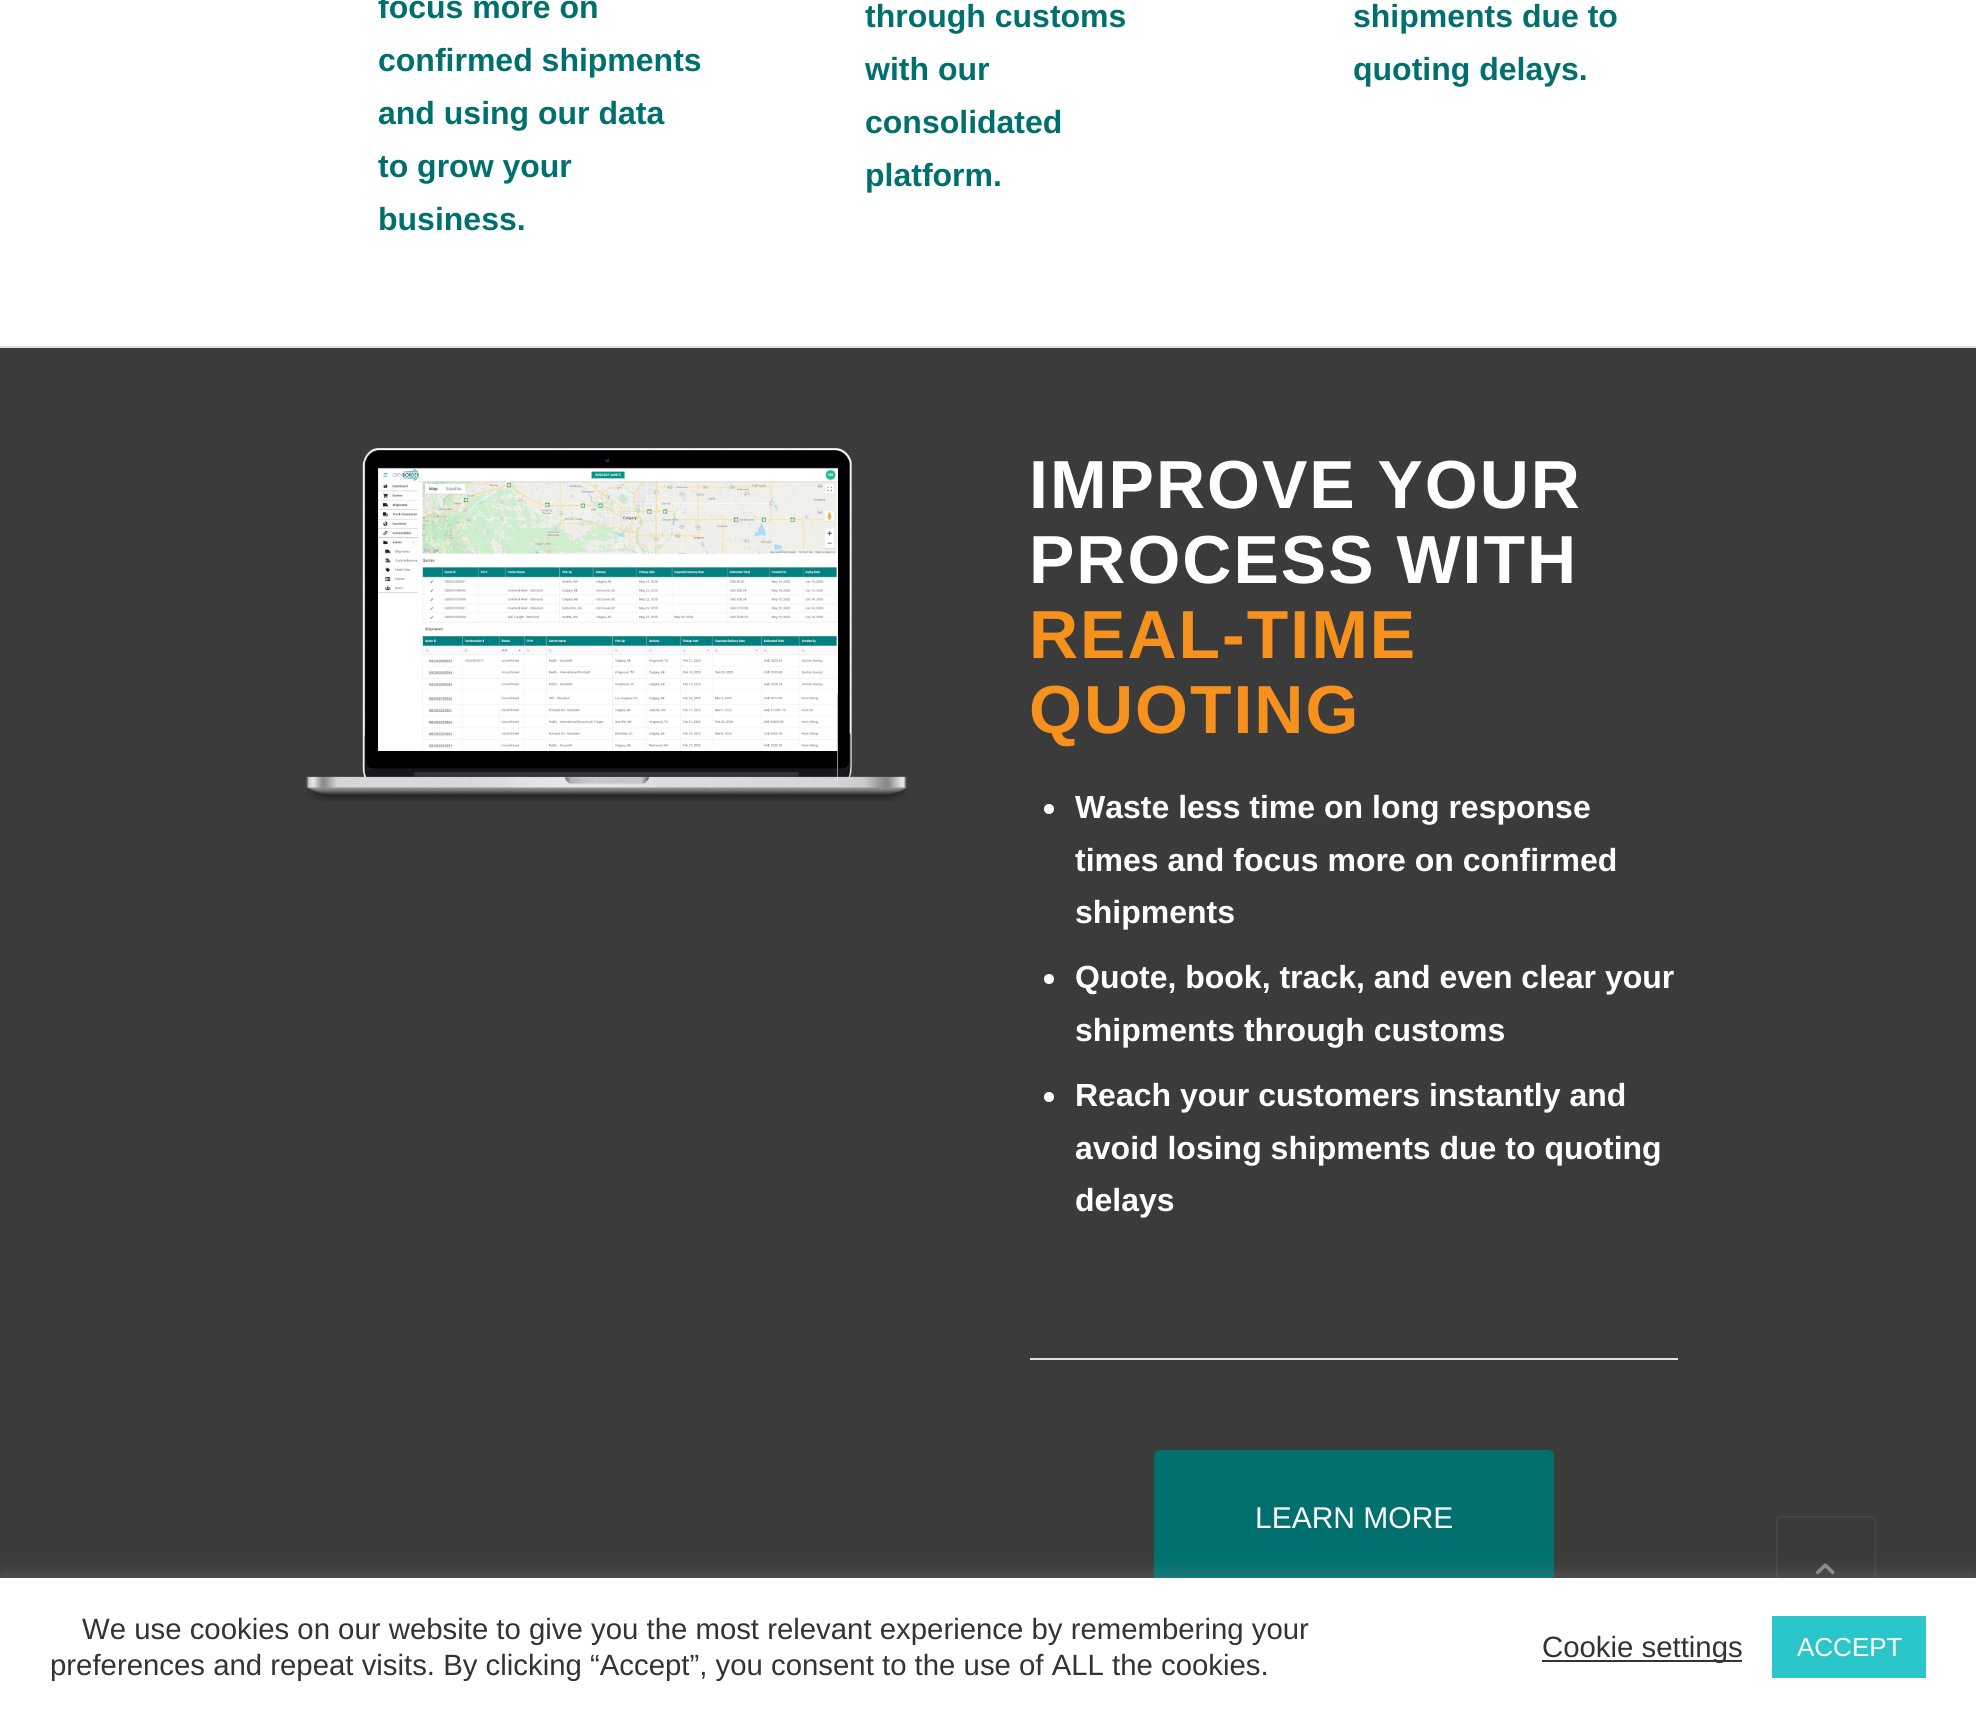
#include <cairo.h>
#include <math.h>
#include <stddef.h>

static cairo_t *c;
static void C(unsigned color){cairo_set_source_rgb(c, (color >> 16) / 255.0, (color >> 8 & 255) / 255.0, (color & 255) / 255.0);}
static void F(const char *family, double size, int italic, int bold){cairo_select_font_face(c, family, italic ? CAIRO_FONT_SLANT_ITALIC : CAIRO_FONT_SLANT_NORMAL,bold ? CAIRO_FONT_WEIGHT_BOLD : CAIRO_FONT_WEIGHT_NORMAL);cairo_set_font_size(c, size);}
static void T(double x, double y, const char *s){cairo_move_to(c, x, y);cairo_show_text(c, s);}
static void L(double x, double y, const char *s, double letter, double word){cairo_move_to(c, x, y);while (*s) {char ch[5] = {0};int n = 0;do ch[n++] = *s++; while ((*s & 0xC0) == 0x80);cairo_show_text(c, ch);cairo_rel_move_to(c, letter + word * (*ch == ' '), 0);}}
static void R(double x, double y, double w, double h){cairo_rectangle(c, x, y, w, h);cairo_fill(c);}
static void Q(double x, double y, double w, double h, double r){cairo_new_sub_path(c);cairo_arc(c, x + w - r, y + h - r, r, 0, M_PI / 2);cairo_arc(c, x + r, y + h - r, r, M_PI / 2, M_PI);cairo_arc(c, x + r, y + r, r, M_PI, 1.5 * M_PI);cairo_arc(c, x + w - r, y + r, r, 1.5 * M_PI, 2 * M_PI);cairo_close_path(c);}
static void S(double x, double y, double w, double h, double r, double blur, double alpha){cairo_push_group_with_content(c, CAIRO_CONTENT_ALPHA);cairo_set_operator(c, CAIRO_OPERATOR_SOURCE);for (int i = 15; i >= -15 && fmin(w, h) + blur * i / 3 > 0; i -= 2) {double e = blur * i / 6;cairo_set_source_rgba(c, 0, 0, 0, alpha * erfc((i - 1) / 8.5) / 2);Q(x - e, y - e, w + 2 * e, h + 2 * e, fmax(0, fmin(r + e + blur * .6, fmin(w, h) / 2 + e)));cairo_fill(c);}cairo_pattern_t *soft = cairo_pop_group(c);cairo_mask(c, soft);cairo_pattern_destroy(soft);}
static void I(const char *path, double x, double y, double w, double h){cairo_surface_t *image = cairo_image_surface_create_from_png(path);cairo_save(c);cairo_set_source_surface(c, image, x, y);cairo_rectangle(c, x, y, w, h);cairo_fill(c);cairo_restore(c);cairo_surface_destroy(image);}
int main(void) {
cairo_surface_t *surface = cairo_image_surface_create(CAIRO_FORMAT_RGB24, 1976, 1715);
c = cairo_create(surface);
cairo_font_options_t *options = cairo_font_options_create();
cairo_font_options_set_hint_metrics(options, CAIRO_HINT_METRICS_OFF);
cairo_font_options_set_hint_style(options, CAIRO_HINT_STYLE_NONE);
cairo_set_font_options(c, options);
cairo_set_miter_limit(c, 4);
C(0xffffff);
cairo_paint(c);
F("Liberation Sans",32,0,1);
C(0x00706e);
T(378,18,"focus more on");
T(378,71,"confirmed shipments");
T(378,124,"and using our data");
T(378,177,"to grow your");
T(378,230,"business.");
T(865,27,"through customs");
T(865,80,"with our");
T(865,133,"consolidated");
T(865,186,"platform.");
T(1353,27,"shipments due to");
T(1353,80,"quoting delays.");
C(0x3b3b3b);
R(0,348,1976,1230);
C(0xe1e1e1);
R(0,346,1976,2);
I("1.png",306,448,602,354);
F("Liberation Sans",68,0,1);
C(0xffffff);
L(1029,508,"IMPROVE YOUR",2,0);
L(1029,583,"PROCESS WITH",2,0);
C(0xf7911e);
L(1029,658,"REAL-TIME",2,0);
L(1029,733,"QUOTING",2,0);
C(0xffffff);
cairo_new_path(c);
cairo_arc(c,1049,809,5,0,2 * M_PI);
cairo_fill(c);
F("Liberation Sans",32,0,1);
T(1075,818,"Waste less time on long response");
T(1075,871,"times and focus more on confirmed");
T(1075,923,"shipments");
cairo_new_path(c);
cairo_arc(c,1049,979,5,0,2 * M_PI);
cairo_fill(c);
T(1075,988,"Quote, book, track, and even clear your");
T(1075,1041,"shipments through customs");
cairo_new_path(c);
cairo_arc(c,1049,1097,5,0,2 * M_PI);
cairo_fill(c);
T(1075,1106,"Reach your customers instantly and");
T(1075,1159,"avoid losing shipments due to quoting");
T(1075,1211,"delays");
C(0xe1e1e1);
R(1030,1358,648,2);
C(0x00706e);
Q(1154,1450,400,134,6);
cairo_fill(c);
F("Liberation Sans",30,0,0);
C(0xffffff);
T(1255,1528,"LEARN MORE");
C(0x383a3c);
Q(1777,1517,98,98,3);
cairo_fill_preserve(c);
C(0x424548);
cairo_stroke(c);
I("2.png",1816,1563,19,12);
C(0xacabab);
S(0,1576,1976,138,0,10,.3);
C(0xffffff);
R(0,1578,1976,137);
F("Liberation Sans",29.35,0,0);
C(0x333333);
T(82,1639,"We use cookies on our website to give you the most relevant experience by remembering your");
T(50,1675,"preferences and repeat visits. By clicking “Accept”, you consent to the use of ALL the cookies.");
R(1542,1660,200,2);
T(1542,1657,"Cookie settings");
C(0x2ac6c9);
R(1772,1616,154,62);
F("Liberation Sans",26,0,0);
C(0xffffff);
T(1797,1656,"ACCEPT");
cairo_surface_write_to_png(surface, "o.png");
cairo_font_options_destroy(options);
cairo_destroy(c);
cairo_surface_destroy(surface);
return 0;
}
